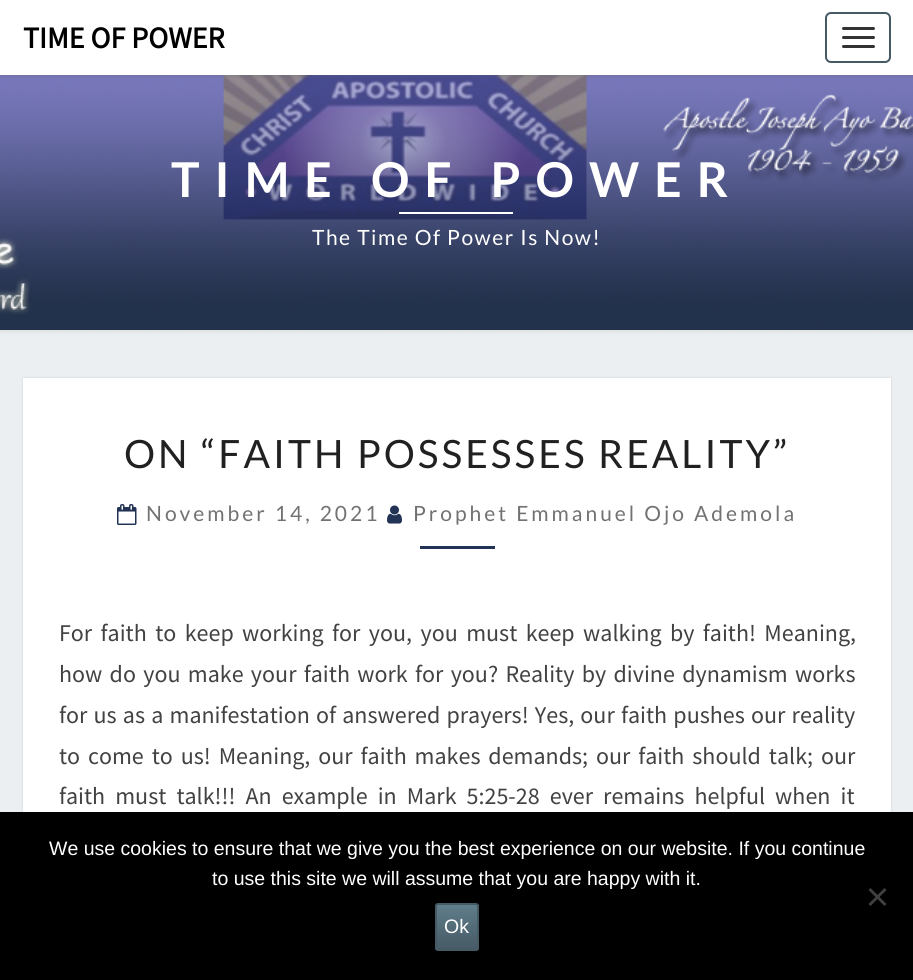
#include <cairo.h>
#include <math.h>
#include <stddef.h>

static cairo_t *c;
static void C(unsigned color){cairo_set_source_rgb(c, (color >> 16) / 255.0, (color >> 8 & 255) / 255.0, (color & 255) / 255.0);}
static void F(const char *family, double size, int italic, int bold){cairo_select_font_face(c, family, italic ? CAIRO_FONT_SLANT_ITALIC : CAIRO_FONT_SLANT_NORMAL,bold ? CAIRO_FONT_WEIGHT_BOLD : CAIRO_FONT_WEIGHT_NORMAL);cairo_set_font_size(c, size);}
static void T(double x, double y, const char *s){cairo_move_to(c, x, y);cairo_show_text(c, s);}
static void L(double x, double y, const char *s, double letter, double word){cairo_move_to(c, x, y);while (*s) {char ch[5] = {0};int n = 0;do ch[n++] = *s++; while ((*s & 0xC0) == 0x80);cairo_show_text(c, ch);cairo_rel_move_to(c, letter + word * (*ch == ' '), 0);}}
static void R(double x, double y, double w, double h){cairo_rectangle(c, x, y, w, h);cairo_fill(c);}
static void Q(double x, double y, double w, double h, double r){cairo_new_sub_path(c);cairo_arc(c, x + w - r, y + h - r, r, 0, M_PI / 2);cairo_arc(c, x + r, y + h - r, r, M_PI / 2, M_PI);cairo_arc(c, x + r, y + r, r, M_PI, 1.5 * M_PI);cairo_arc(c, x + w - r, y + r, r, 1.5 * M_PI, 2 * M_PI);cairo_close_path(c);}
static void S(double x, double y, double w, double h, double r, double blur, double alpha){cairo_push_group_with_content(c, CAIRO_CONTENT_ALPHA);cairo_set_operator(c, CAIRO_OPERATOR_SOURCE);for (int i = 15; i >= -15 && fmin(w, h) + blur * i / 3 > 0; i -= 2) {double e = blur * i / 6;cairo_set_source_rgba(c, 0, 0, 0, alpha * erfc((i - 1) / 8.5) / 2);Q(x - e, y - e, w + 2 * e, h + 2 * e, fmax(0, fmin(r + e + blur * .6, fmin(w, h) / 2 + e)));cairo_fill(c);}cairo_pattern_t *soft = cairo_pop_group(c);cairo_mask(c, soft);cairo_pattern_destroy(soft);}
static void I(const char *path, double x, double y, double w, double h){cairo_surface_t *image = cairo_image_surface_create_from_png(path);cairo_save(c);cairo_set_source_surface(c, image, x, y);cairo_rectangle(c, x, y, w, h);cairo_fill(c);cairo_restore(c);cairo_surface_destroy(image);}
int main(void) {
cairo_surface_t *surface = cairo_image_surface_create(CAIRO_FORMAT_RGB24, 913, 980);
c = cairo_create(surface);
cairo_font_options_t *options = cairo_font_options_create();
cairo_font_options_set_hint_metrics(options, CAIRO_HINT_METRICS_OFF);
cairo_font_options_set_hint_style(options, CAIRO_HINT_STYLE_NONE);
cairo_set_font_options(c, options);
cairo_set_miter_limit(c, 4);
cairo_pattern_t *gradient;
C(0xeceff1);
cairo_paint(c);
C(0xb6b6b6);
S(-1,74,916,258,0,1.5,.3);
I("1.png",0,75,913,255);
C(0x646464);
S(0,2,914,75,0,1,.2);
C(0xffffff);
R(0,0,913,75);
F("Source Sans Pro",30,0,1);
C(0x000000);
T(23,48,"TIME OF POWER");
Q(826,13,64,49,5);
C(0x455a64);
cairo_stroke(c);
C(0x333333);
Q(842,27,33,3,1.5);
cairo_fill(c);
Q(842,36,33,3,1.5);
cairo_fill(c);
Q(842,45,33,3,1.5);
cairo_fill(c);
F("Lato",48,0,1);
C(0xffffff);
L(171,197,"TIME OF POWER",15,0);
R(399,212,114,2);
F("Lato",21,0,0);
L(312,245,"The Time Of Power Is Now!",1.5,0);
C(0x000000);
S(23,378,868,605,0,1,.15);
C(0xffffff);
R(23,378,868,434);
F("Lato",39,0,0);
C(0x212121);
L(124,468,"ON “FAITH POSSESSES REALITY”",3,0);
I("2.png",117,504,20,21);
F("Lato",21,0,0);
C(0x727272);
L(146,521,"November 14, 2021",3,0);
I("3.png",387,505,15,19);
L(413,521,"Prophet Emmanuel Ojo Ademola",3,0);
C(0x223355);
R(420,546,75,3);
F("Source Sans Pro",24,0,0);
C(0x424242);
L(59,641,"For faith to keep working for you, you must keep walking by faith! Meaning,",0,3.6);
L(59,682,"how do you make your faith work for you? Reality by divine dynamism works",0,2.5);
L(59,723,"for us as a manifestation of answered prayers! Yes, our faith pushes our reality",0,1.4);
L(59,764,"to come to us! Meaning, our faith makes demands; our faith should talk; our",0,3.1);
L(59,804,"faith must talk!!! An example in Mark 5:25-28 ever remains helpful when it",0,5.25);
C(0x000000);
R(0,812,913,168);
F("Liberation Sans",19.5,0,0);
C(0xffffff);
T(49,855,"We use cookies to ensure that we give you the best experience on our website. If you continue");
T(212,885,"to use this site we will assume that you are happy with it.");
C(0x404040);
cairo_new_path(c);
cairo_move_to(c,884.5,888);
cairo_line_to(c,886.5,890);
cairo_line_to(c,870.5,906);
cairo_line_to(c,868.5,904);
cairo_close_path(c);
cairo_fill(c);
cairo_new_path(c);
cairo_move_to(c,868.5,890);
cairo_line_to(c,870.5,888);
cairo_line_to(c,886.5,904);
cairo_line_to(c,884.5,906);
cairo_close_path(c);
cairo_fill(c);
cairo_save(c);
Q(435,903,44,48,3);
cairo_clip(c);
gradient = cairo_pattern_create_linear(457,905,457,950);
cairo_pattern_add_color_stop_rgba(gradient,0,0.376,0.49,0.545,1);
cairo_pattern_add_color_stop_rgba(gradient,1,0.271,0.353,0.392,1);
cairo_set_source(c,gradient);
cairo_pattern_destroy(gradient);
R(435,905,44,45);
cairo_restore(c);
Q(436,904,42,46,2);
C(0x455a64);
cairo_stroke(c);
C(0xffffff);
T(444,933,"Ok");
cairo_surface_write_to_png(surface, "o.png");
cairo_font_options_destroy(options);
cairo_destroy(c);
cairo_surface_destroy(surface);
return 0;
}
